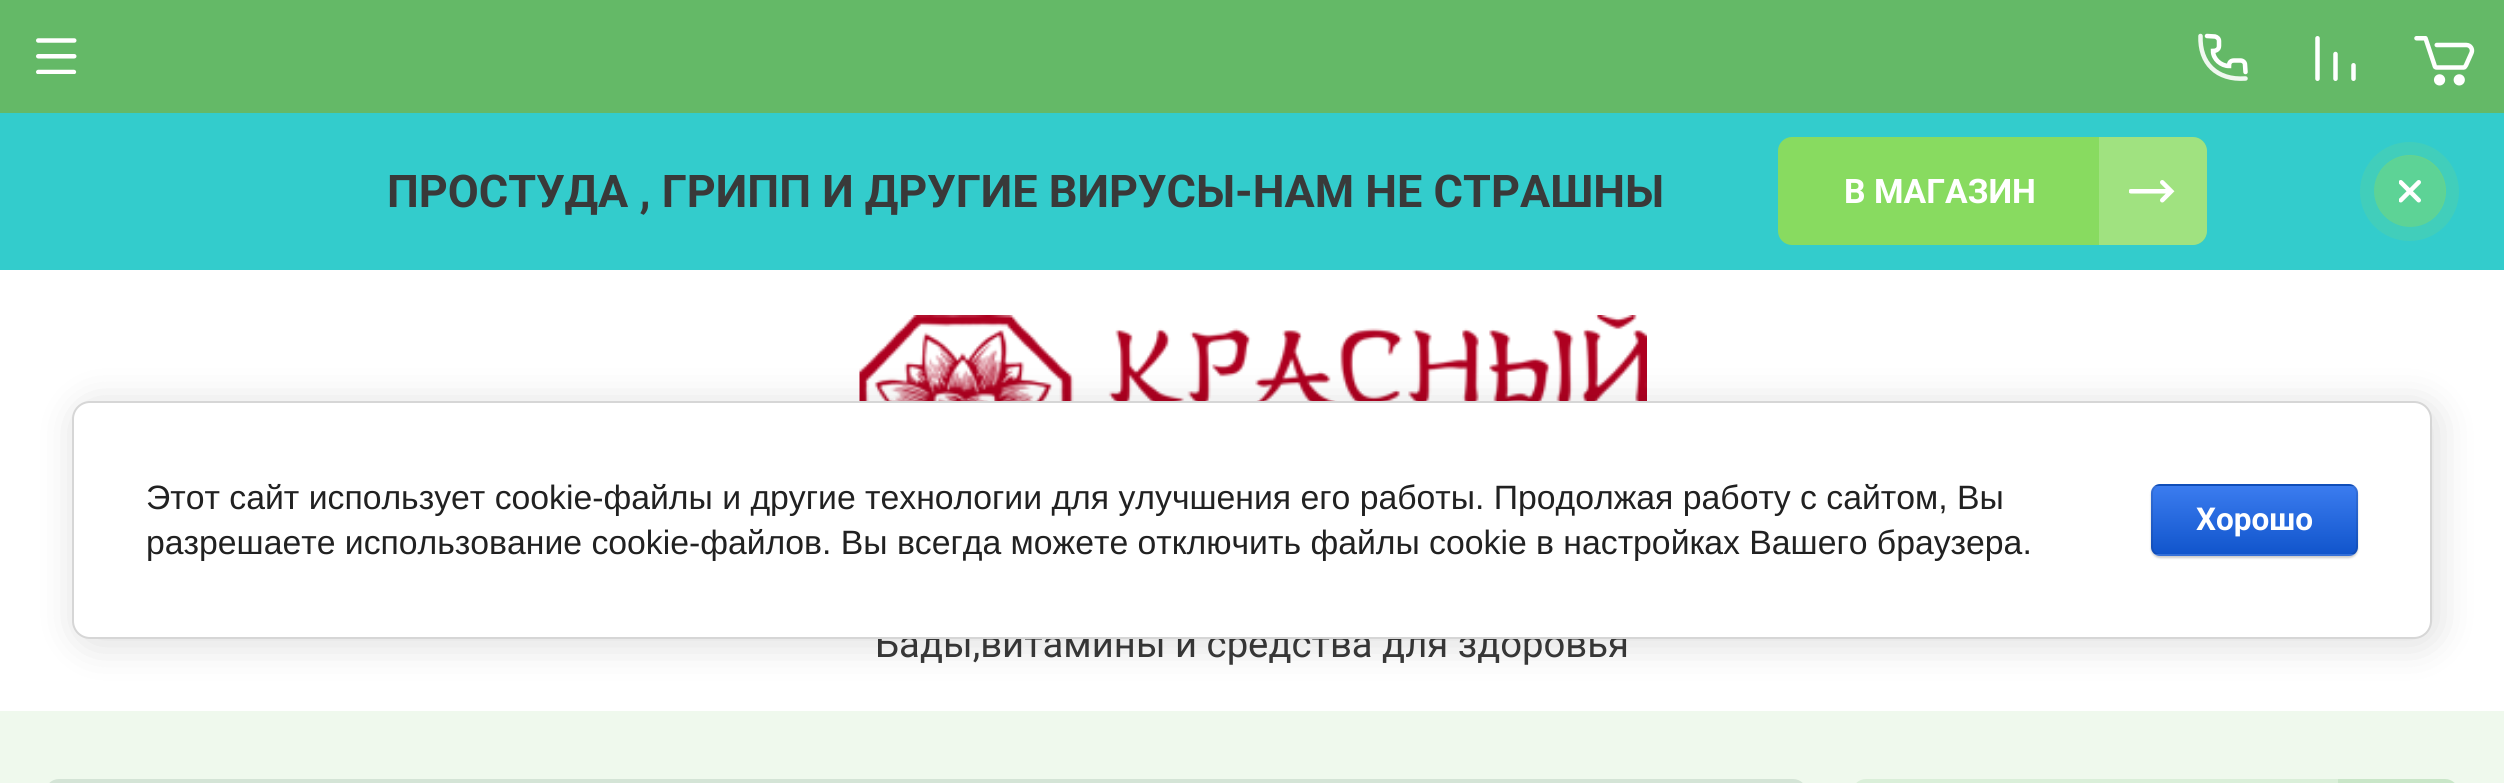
#include <cairo.h>
#include <math.h>
#include <stddef.h>

static cairo_t *c;
static void C(unsigned color){cairo_set_source_rgb(c, (color >> 16) / 255.0, (color >> 8 & 255) / 255.0, (color & 255) / 255.0);}
static void F(const char *family, double size, int italic, int bold){cairo_select_font_face(c, family, italic ? CAIRO_FONT_SLANT_ITALIC : CAIRO_FONT_SLANT_NORMAL,bold ? CAIRO_FONT_WEIGHT_BOLD : CAIRO_FONT_WEIGHT_NORMAL);cairo_set_font_size(c, size);}
static void T(double x, double y, const char *s){cairo_move_to(c, x, y);cairo_show_text(c, s);}
static void R(double x, double y, double w, double h){cairo_rectangle(c, x, y, w, h);cairo_fill(c);}
static void Q(double x, double y, double w, double h, double r){cairo_new_sub_path(c);cairo_arc(c, x + w - r, y + h - r, r, 0, M_PI / 2);cairo_arc(c, x + r, y + h - r, r, M_PI / 2, M_PI);cairo_arc(c, x + r, y + r, r, M_PI, 1.5 * M_PI);cairo_arc(c, x + w - r, y + r, r, 1.5 * M_PI, 2 * M_PI);cairo_close_path(c);}
static void S(double x, double y, double w, double h, double r, double blur, double alpha){cairo_push_group_with_content(c, CAIRO_CONTENT_ALPHA);cairo_set_operator(c, CAIRO_OPERATOR_SOURCE);for (int i = 15; i >= -15 && fmin(w, h) + blur * i / 3 > 0; i -= 2) {double e = blur * i / 6;cairo_set_source_rgba(c, 0, 0, 0, alpha * erfc((i - 1) / 8.5) / 2);Q(x - e, y - e, w + 2 * e, h + 2 * e, fmax(0, fmin(r + e + blur * .6, fmin(w, h) / 2 + e)));cairo_fill(c);}cairo_pattern_t *soft = cairo_pop_group(c);cairo_mask(c, soft);cairo_pattern_destroy(soft);}
static void I(const char *path, double x, double y, double w, double h){cairo_surface_t *image = cairo_image_surface_create_from_png(path);cairo_save(c);cairo_set_source_surface(c, image, x, y);cairo_rectangle(c, x, y, w, h);cairo_fill(c);cairo_restore(c);cairo_surface_destroy(image);}
int main(void) {
cairo_surface_t *surface = cairo_image_surface_create(CAIRO_FORMAT_RGB24, 2504, 783);
c = cairo_create(surface);
cairo_font_options_t *options = cairo_font_options_create();
cairo_font_options_set_hint_metrics(options, CAIRO_HINT_METRICS_OFF);
cairo_font_options_set_hint_style(options, CAIRO_HINT_STYLE_NONE);
cairo_set_font_options(c, options);
cairo_set_miter_limit(c, 4);
cairo_pattern_t *gradient;
C(0xeff9ed);
cairo_paint(c);
C(0x64b967);
R(0,0,2504,113);
I("1.png",36,38,41,36);
cairo_new_path(c);
cairo_move_to(c,2200.5,36);
cairo_curve_to(c,2199.5,63,2216.5,80.5,2245.5,78.5);
C(0xf0f8f0);
cairo_set_line_width(c,4.5);
cairo_set_line_cap(c,CAIRO_LINE_CAP_ROUND);
cairo_stroke(c);
cairo_new_path(c);
cairo_move_to(c,2245.5,72);
cairo_line_to(c,2245,64.5);
cairo_curve_to(c,2245,62.5,2243,60.5,2240.5,60.5);
cairo_line_to(c,2234,60.5);
cairo_curve_to(c,2229.5,60.5,2229,64,2229,66);
cairo_curve_to(c,2221,66,2213,59,2213,51);
cairo_curve_to(c,2215,51,2219,50,2219,46);
cairo_line_to(c,2219,41);
cairo_curve_to(c,2219,38.5,2217,37,2215,36.5);
cairo_line_to(c,2207,36);
C(0xffffff);
cairo_stroke(c);
I("2.png",2315,36,41,45);
I("3.png",2414,36,61,50);
C(0x33cccc);
R(0,113,2504,157);
F("Roboto",45,0,1);
C(0x393939);
T(387,207,"ПРОСТУДА , ГРИПП И ДРУГИЕ ВИРУСЫ-НАМ НЕ СТРАШНЫ");
C(0x88db60);
Q(1778,137,429,108,14);
cairo_fill(c);
F("Roboto",33.75,0,1);
C(0xffffff);
T(1844,203,"В МАГАЗИН");
cairo_set_source_rgba(c,1,1,1,0.2);
cairo_new_path(c);
cairo_move_to(c,2099,137);
cairo_line_to(c,2193,137);
cairo_curve_to(c,2200.5,137,2207,143.5,2207,151);
cairo_line_to(c,2207,231);
cairo_curve_to(c,2207,238.5,2200.5,245,2193,245);
cairo_line_to(c,2099,245);
cairo_close_path(c);
cairo_fill(c);
I("4.png",2129,180,46,23);
cairo_arc(c,2409.5,191.5,42.5,0,2 * M_PI);
C(0x41cebb);
cairo_set_line_width(c,14);
cairo_set_line_cap(c,CAIRO_LINE_CAP_BUTT);
cairo_stroke(c);
cairo_set_source_rgba(c,0.533,0.859,0.376,0.5);
cairo_arc(c,2410,191,36,0,2 * M_PI);
cairo_fill(c);
I("5.png",2399,180,22,23);
C(0xffffff);
R(0,270,2504,441);
I("6.png",859,315,788,86);
F("Roboto",38.25,0,0);
C(0x393939);
T(875,657,"Бады,витамины и средства для здоровья");
Q(47.5,781.5,1757,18,11.5);
C(0xd4e4d6);
cairo_set_line_width(c,5);
cairo_stroke(c);
C(0xdaefd9);
Q(1852,779,607,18,14);
cairo_fill(c);
cairo_set_source_rgba(c,0.392,0.725,0.404,0.15);
cairo_new_path(c);
cairo_move_to(c,2338,779);
cairo_line_to(c,2445,779);
cairo_curve_to(c,2452.5,779,2459,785.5,2459,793);
cairo_line_to(c,2459,783);
cairo_curve_to(c,2459,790.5,2452.5,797,2445,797);
cairo_line_to(c,2338,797);
cairo_close_path(c);
cairo_fill(c);
C(0x000000);
S(77,405,2360,239,18,20,.14);
C(0xffffff);
Q(73,402,2358,236,17);
cairo_fill_preserve(c);
C(0xd6d6d6);
cairo_set_line_width(c,2);
cairo_stroke(c);
F("Liberation Sans",33.75,0,0);
C(0x212121);
T(146,509,"Этот сайт использует cookie-файлы и другие технологии для улучшения его работы. Продолжая работу с сайтом, Вы");
T(146,554,"разрешаете использование cookie-файлов. Вы всегда можете отключить файлы cookie в настройках Вашего браузера.");
C(0x000000);
S(2151,486,207,72,9,1,.2);
cairo_save(c);
Q(2151,484,207,72,9);
cairo_clip(c);
gradient = cairo_pattern_create_linear(2255,419,2255,486);
cairo_pattern_add_color_stop_rgba(gradient,0,0.231,0.486,0.937,1);
cairo_pattern_add_color_stop_rgba(gradient,1,0.067,0.333,0.8,1);
cairo_set_source(c,gradient);
cairo_pattern_destroy(gradient);
R(2151,484,207,2);
gradient = cairo_pattern_create_linear(2255,486,2255,554);
cairo_pattern_add_color_stop_rgba(gradient,0,0.231,0.486,0.937,1);
cairo_pattern_add_color_stop_rgba(gradient,1,0.067,0.333,0.8,1);
cairo_set_source(c,gradient);
cairo_pattern_destroy(gradient);
R(2151,486,207,68);
gradient = cairo_pattern_create_linear(2255,554,2255,621);
cairo_pattern_add_color_stop_rgba(gradient,0,0.231,0.486,0.937,1);
cairo_pattern_add_color_stop_rgba(gradient,1,0.067,0.333,0.8,1);
cairo_set_source(c,gradient);
cairo_pattern_destroy(gradient);
R(2151,554,207,2);
cairo_restore(c);
Q(2152,485,205,70,8);
cairo_set_source_rgba(c,0,0,0,0.1);
cairo_stroke(c);
F("Roboto",31.5,0,1);
C(0xffffff);
T(2196,530,"Хорошо");
cairo_surface_write_to_png(surface, "o.png");
cairo_font_options_destroy(options);
cairo_destroy(c);
cairo_surface_destroy(surface);
return 0;
}
